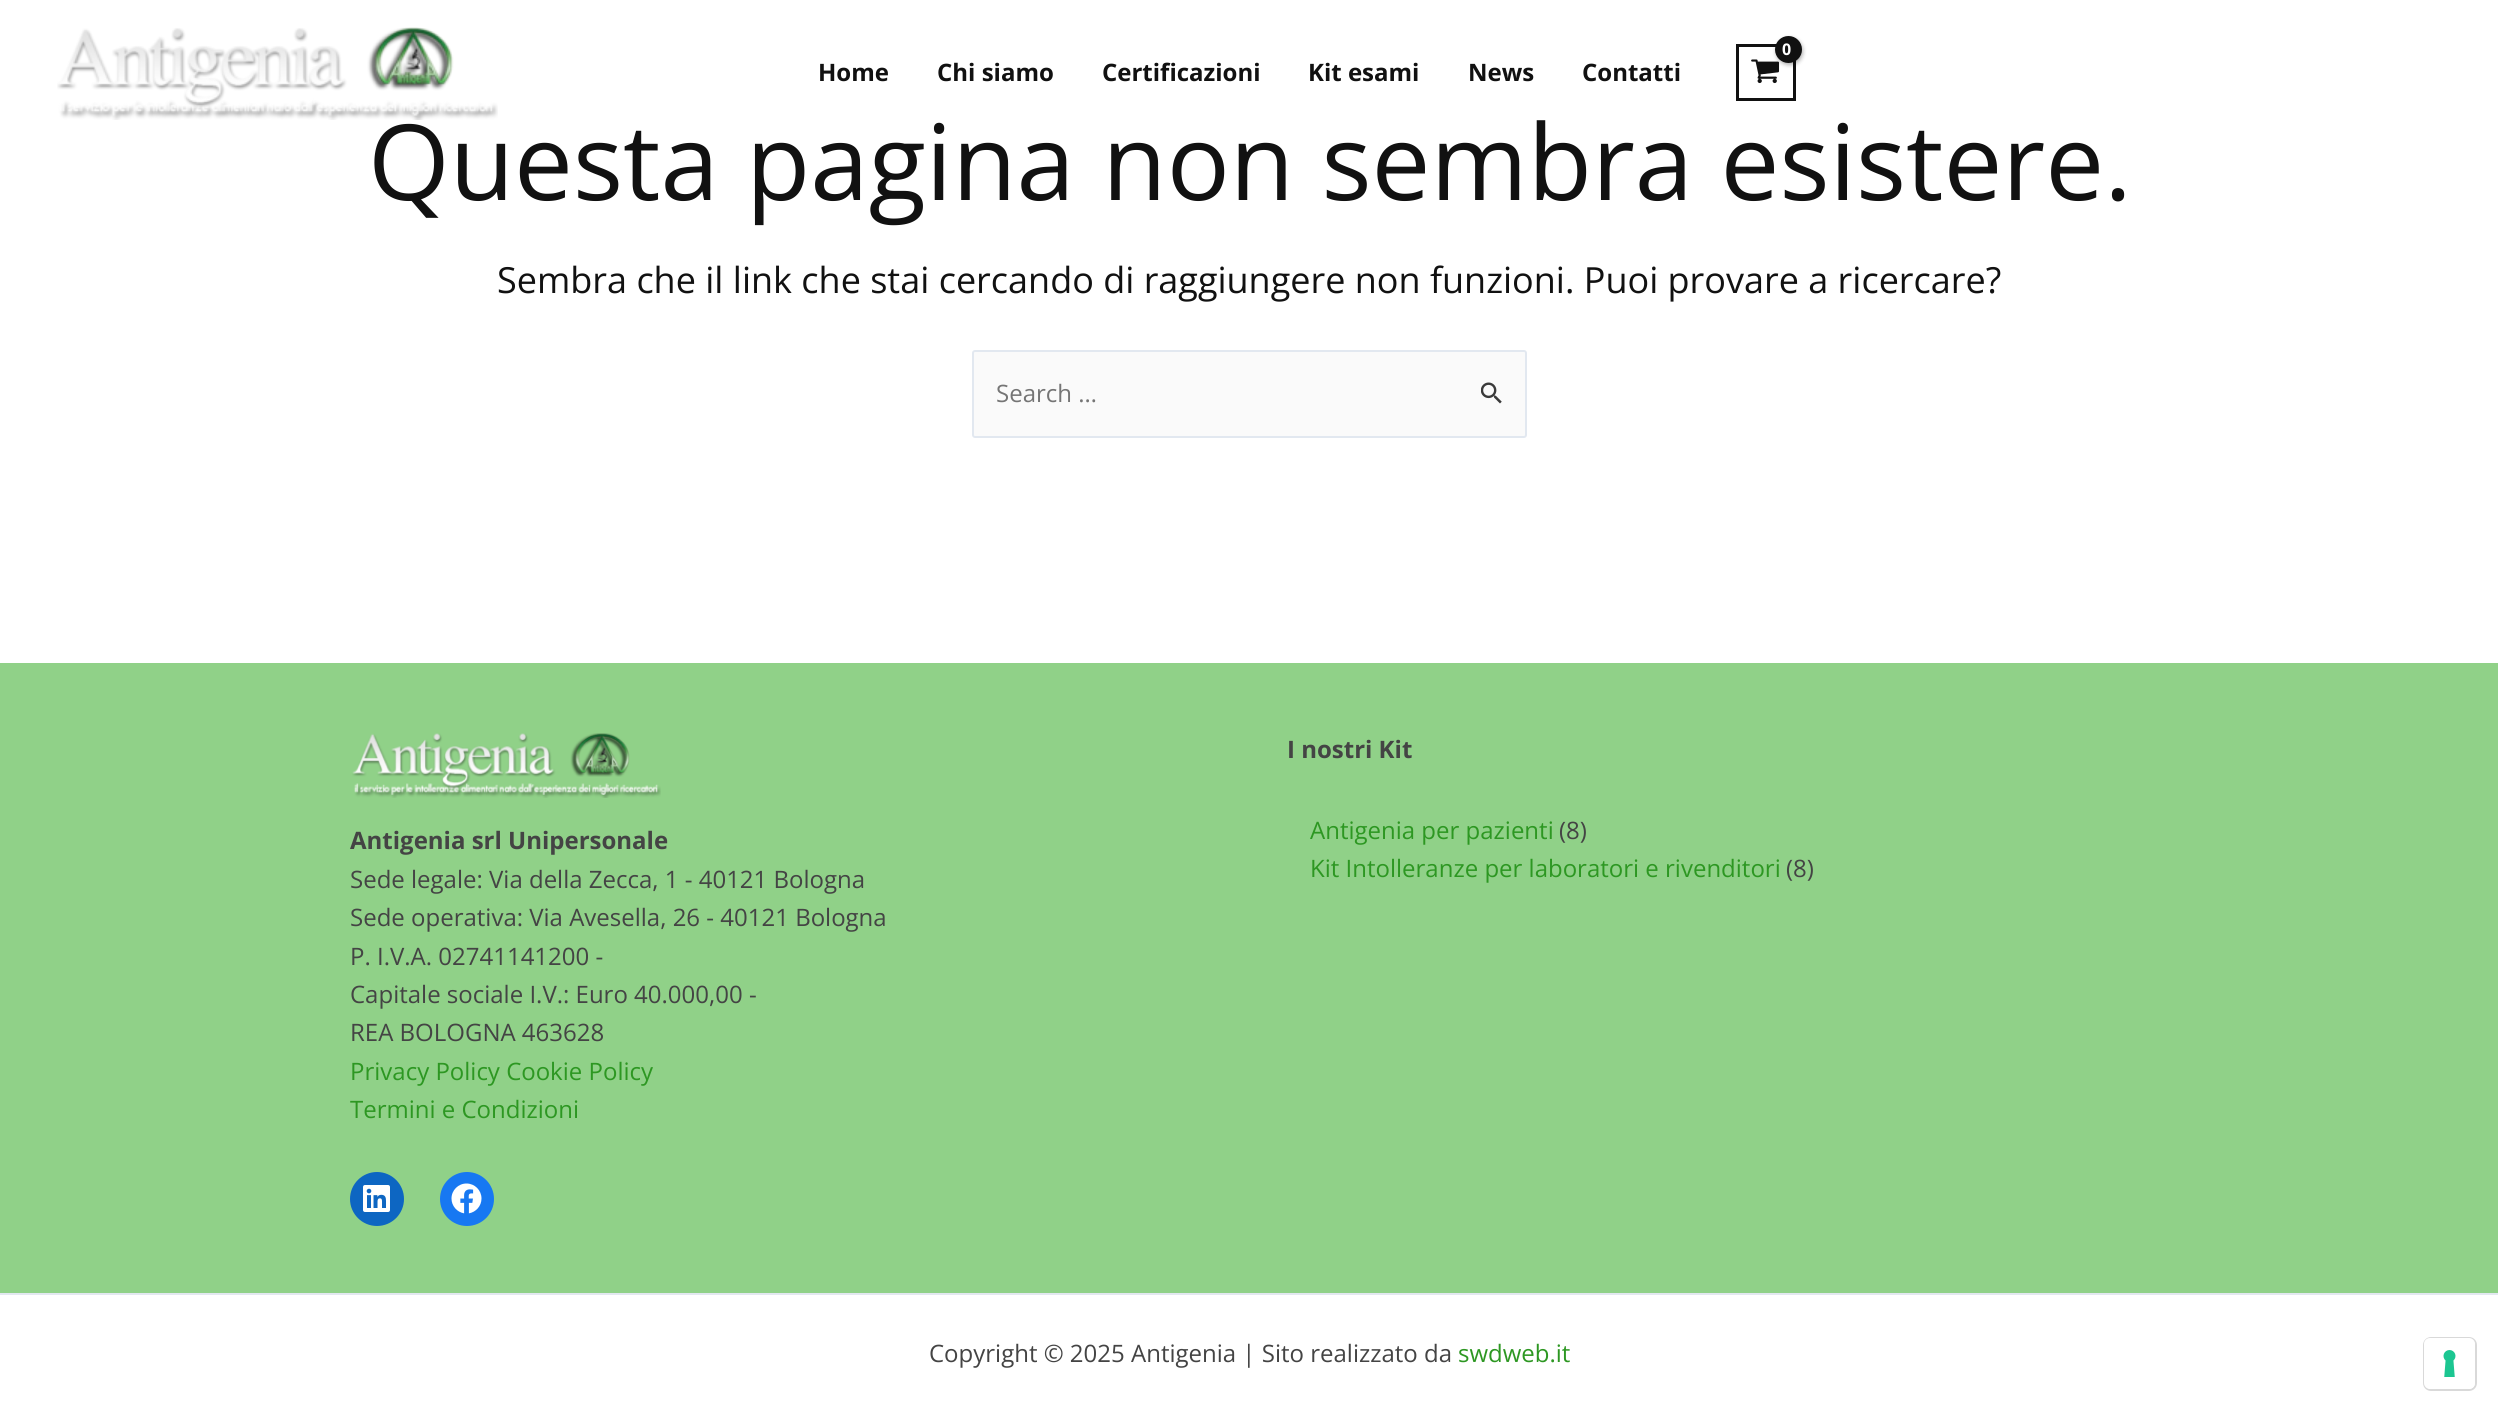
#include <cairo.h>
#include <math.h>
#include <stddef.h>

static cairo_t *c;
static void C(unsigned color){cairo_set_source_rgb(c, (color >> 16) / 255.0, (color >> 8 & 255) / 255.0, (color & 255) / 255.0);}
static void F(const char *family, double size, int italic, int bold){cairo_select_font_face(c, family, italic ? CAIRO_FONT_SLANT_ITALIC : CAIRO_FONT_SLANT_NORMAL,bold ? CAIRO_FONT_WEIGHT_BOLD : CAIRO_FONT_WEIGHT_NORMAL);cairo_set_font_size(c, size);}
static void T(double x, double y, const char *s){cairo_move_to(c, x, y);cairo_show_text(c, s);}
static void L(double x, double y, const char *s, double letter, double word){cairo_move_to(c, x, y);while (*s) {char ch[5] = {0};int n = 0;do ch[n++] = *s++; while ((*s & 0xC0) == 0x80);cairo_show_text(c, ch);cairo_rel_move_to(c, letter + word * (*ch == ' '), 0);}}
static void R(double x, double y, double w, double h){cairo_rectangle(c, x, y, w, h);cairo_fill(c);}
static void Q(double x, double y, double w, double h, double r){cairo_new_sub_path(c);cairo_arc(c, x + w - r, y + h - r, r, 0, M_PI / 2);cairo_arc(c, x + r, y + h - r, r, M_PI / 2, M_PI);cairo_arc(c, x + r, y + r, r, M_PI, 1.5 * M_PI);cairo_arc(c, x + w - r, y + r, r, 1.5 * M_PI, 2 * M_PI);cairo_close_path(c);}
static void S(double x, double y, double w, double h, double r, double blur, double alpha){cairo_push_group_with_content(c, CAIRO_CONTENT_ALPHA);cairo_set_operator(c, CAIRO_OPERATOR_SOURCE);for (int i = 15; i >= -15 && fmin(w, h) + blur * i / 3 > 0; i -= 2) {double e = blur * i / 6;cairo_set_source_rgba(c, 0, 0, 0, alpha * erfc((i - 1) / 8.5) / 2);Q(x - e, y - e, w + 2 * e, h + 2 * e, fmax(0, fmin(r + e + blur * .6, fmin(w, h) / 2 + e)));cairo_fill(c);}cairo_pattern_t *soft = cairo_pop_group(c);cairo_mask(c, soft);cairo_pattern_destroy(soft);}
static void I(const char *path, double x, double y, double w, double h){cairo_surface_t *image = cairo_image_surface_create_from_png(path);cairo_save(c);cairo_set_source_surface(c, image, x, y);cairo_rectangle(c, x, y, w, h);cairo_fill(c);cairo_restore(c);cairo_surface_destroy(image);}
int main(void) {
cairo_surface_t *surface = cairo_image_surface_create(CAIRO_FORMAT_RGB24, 2498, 1413);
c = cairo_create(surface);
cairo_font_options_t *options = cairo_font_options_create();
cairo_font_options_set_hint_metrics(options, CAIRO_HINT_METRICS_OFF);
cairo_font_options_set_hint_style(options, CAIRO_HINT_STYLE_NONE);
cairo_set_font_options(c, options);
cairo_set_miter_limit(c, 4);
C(0xffffff);
cairo_paint(c);
I("1.png",57,27,441,93);
cairo_rectangle(c,1737.5,45.5,57,54);
C(0x111111);
cairo_set_line_width(c,3);
cairo_stroke(c);
I("2.png",1751,59,29,25);
C(0x000000);
S(1776,38,27,27,13.5,2,.3);
C(0x111111);
cairo_arc(c,1788.5,49.5,13.5,0,2 * M_PI);
cairo_fill(c);
F("Open Sans",16,0,1);
C(0xffffff);
L(1782,55,"0",-1,0);
F("Open Sans",24,0,1);
C(0x111111);
T(818,81,"Home");
T(937,81,"Chi siamo");
T(1102,81,"Certificazioni");
T(1308,81,"Kit esami");
T(1468,81,"News");
T(1582,81,"Contatti");
F("Open Sans",105,0,0);
T(368,200,"Questa pagina non sembra esistere.");
F("Open Sans",36,0,0);
T(497,293,"Sembra che il link che stai cercando di raggiungere non funzioni. Puoi provare a ricercare?");
C(0xfafafa);
Q(973,351,553,86,2);
cairo_fill_preserve(c);
C(0xe2e8f0);
cairo_set_line_width(c,2);
cairo_stroke(c);
F("Open Sans",24,0,0);
C(0x757575);
T(996,402,"Search …");
I("3.png",1481,382,21,22);
C(0x90d188);
R(0,663,2498,630);
F("Open Sans",24,0,1);
C(0x444444);
T(1287,758,"I nostri Kit");
F("Open Sans",24,0,0);
C(0x2d9722);
T(1310,839,"Antigenia per pazienti");
C(0x444444);
T(1559,839,"(8)");
C(0x2d9722);
T(1310,877,"Kit Intolleranze per laboratori e rivenditori");
C(0x444444);
T(1786,877,"(8)");
I("4.png",352,733,309,65);
F("Open Sans",24,0,1);
T(350,849,"Antigenia srl Unipersonale");
F("Open Sans",24,0,0);
T(350,888,"Sede legale: Via della Zecca, 1 - 40121 Bologna");
T(350,926,"Sede operativa: Via Avesella, 26 - 40121 Bologna");
T(350,965,"P. I.V.A. 02741141200 -");
T(350,1003,"Capitale sociale I.V.: Euro 40.000,00 -");
T(350,1041,"REA BOLOGNA 463628");
C(0x2d9722);
T(350,1080,"Privacy Policy Cookie Policy");
T(350,1118,"Termini e Condizioni");
C(0x0d66c2);
cairo_new_path(c);
cairo_arc(c,377,1199,27,0,2 * M_PI);
cairo_fill(c);
I("5.png",363,1185,27,27);
C(0x1778f2);
cairo_arc(c,467,1199,27,0,2 * M_PI);
cairo_fill(c);
I("6.png",451,1183,31,31);
C(0xe2e8f0);
R(0,1293,2498,2);
C(0x444444);
T(929,1362,"Copyright © 2025 Antigenia | Sito realizzato da");
C(0x2d9722);
T(1458,1362,"swdweb.it");
Q(2424,1338,52,52,7);
C(0xd9d9d9);
cairo_stroke(c);
C(0xffffff);
Q(2424,1338,51,51,6);
cairo_fill(c);
I("7.png",2443,1350,13,27);
cairo_surface_write_to_png(surface, "o.png");
cairo_font_options_destroy(options);
cairo_destroy(c);
cairo_surface_destroy(surface);
return 0;
}
